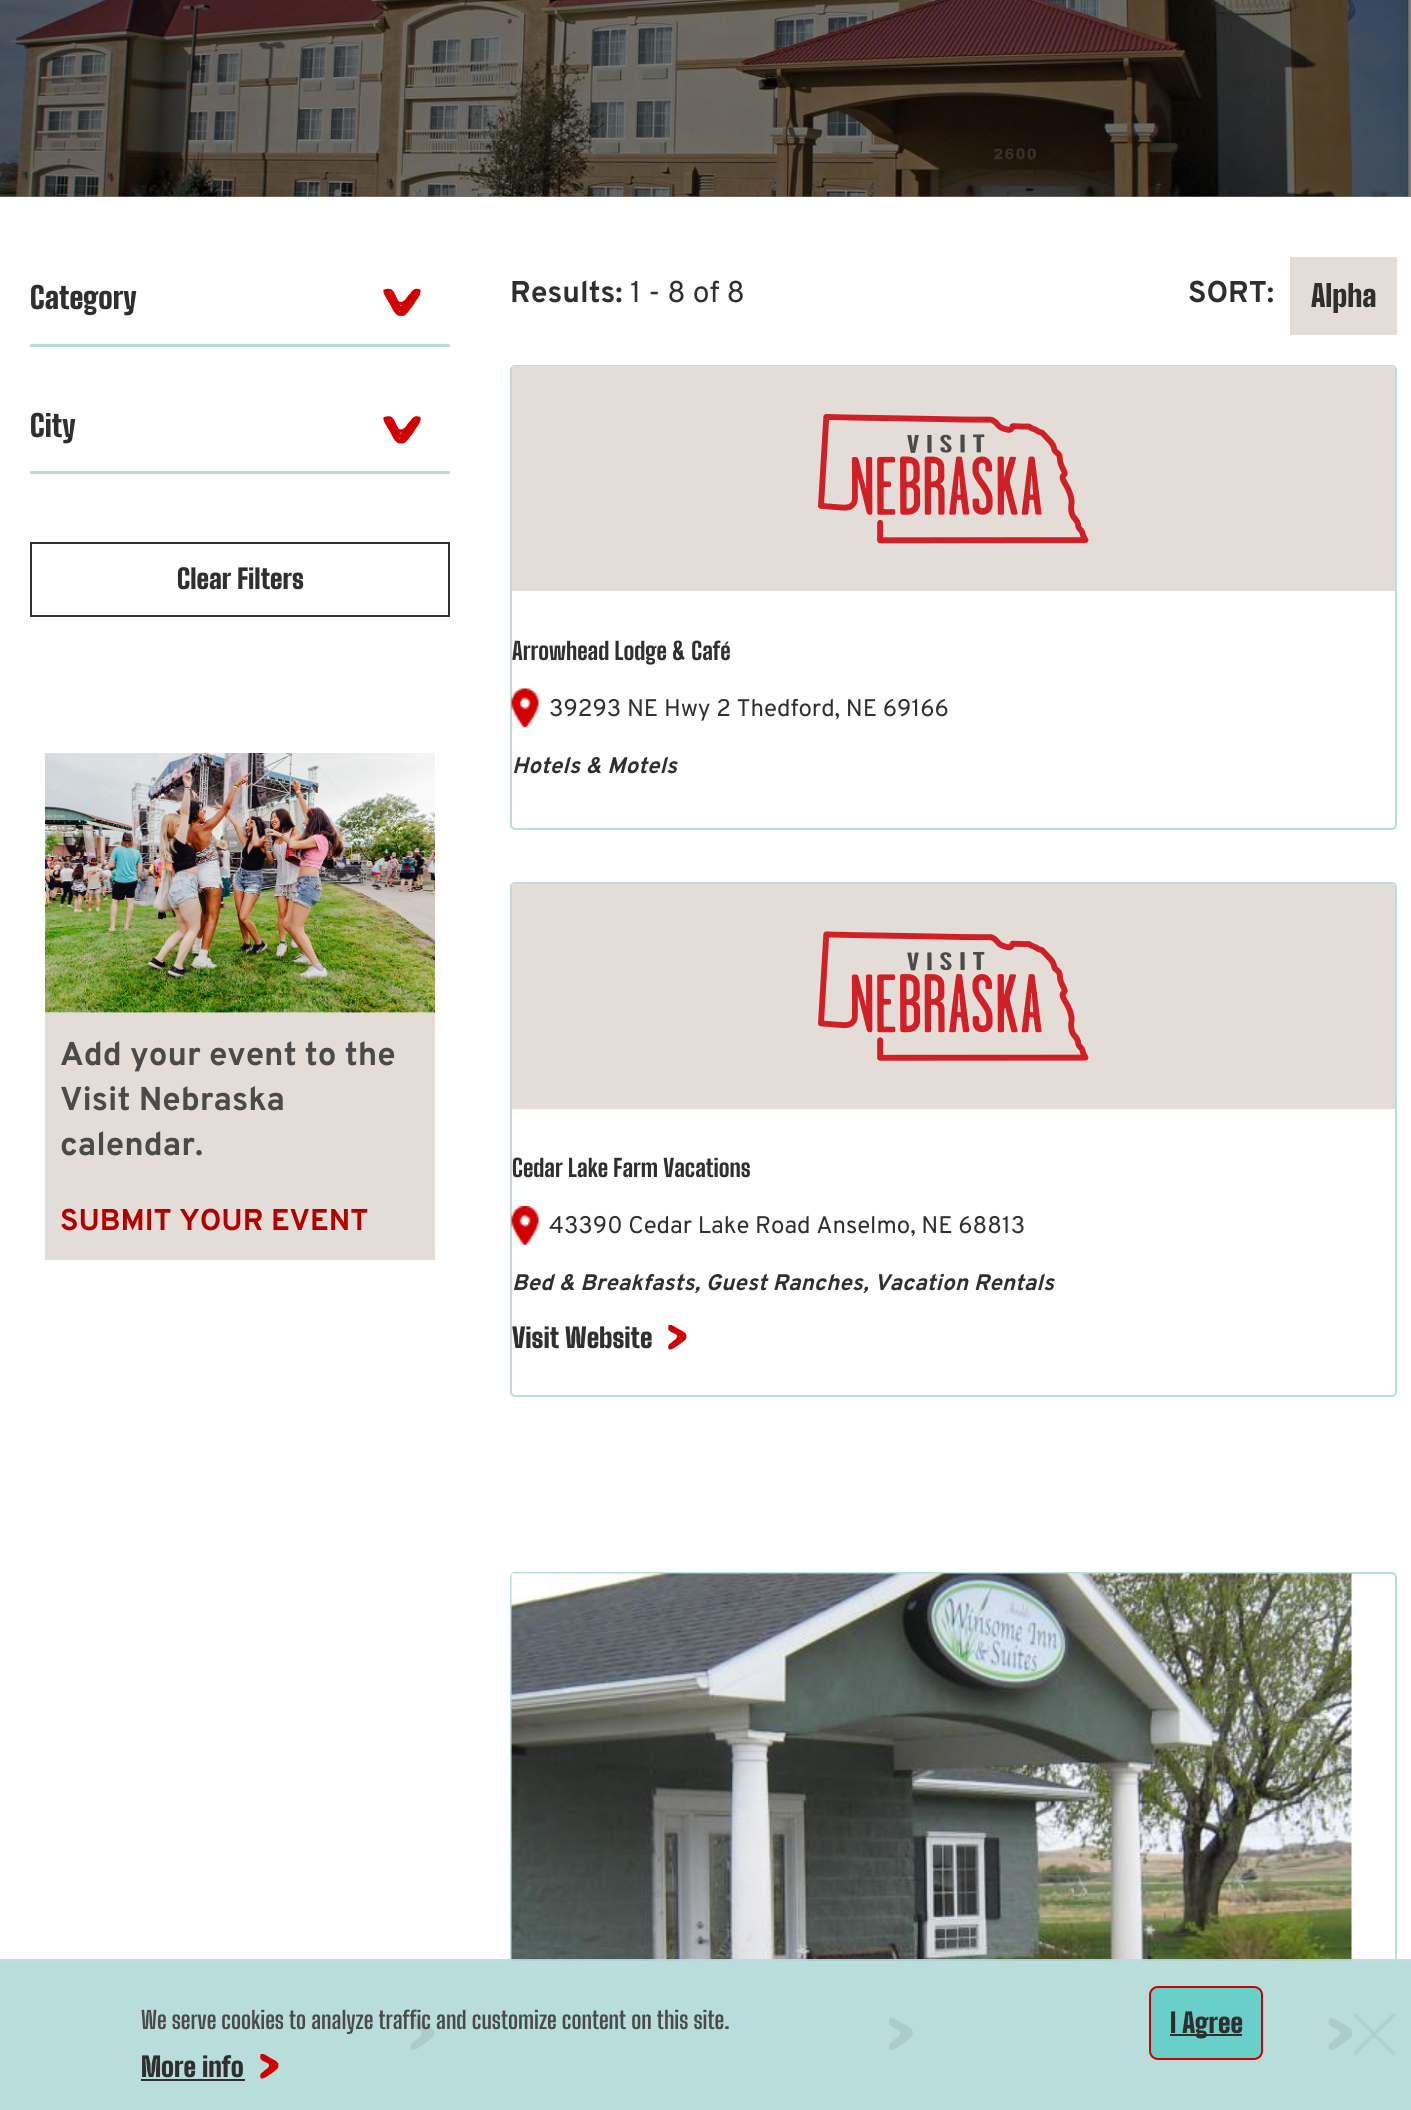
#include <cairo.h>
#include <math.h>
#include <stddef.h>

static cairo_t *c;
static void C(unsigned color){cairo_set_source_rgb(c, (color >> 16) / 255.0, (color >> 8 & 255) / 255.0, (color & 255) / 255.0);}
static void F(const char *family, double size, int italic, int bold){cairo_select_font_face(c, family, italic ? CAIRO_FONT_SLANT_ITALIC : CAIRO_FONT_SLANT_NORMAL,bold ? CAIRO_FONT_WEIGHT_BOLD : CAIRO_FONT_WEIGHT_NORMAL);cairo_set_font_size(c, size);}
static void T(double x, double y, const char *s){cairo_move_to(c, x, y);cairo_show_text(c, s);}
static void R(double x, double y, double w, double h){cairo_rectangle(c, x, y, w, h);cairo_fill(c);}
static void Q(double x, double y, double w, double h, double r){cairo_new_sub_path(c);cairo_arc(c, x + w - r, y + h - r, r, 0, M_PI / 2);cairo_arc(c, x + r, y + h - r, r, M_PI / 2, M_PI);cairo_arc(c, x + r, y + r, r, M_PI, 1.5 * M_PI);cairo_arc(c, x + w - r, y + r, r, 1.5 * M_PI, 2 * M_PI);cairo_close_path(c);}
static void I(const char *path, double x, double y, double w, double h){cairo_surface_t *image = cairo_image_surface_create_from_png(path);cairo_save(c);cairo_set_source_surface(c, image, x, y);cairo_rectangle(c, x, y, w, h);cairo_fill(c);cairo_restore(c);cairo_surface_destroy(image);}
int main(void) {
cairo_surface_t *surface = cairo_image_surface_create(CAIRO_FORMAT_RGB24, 1411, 2110);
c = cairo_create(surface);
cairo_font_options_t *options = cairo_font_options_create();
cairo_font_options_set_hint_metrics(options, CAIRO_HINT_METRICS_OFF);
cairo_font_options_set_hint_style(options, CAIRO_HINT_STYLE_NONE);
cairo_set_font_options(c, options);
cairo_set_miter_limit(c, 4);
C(0xffffff);
cairo_paint(c);
C(0x808080);
R(0,196,1411,1);
I("1.png",0,0,1411,197);
F("Big Shoulders Display Black",30,0,0);
C(0x2f2f2f);
T(30,309,"Category");
I("2.png",383,288,38,28);
C(0xb8dddb);
R(30,344,420,3);
C(0x2f2f2f);
T(30,437,"City");
I("3.png",383,416,38,28);
C(0xb8dddb);
R(30,471,420,3);
cairo_rectangle(c,31,543,418,73);
C(0x2f2f2f);
cairo_stroke(c);
F("Big Shoulders Display Black",27,0,0);
T(177,589,"Clear Filters");
I("4.png",45,753,390,260);
C(0xe4ddd7);
R(45,1013,390,247);
F("Overpass",33,0,1);
C(0x4a4a4a);
T(60,1065,"Add your event to the");
T(60,1110,"Visit Nebraska");
T(60,1155,"calendar.");
F("Overpass",30,0,1);
C(0xb10000);
T(60,1230,"SUBMIT YOUR EVENT");
C(0x2f2f2f);
T(510,302,"Results:");
F("Overpass",30,0,0);
T(630,302,"1 - 8 of 8");
F("Overpass",30,0,1);
T(1188,302,"SORT:");
C(0xe4ddd7);
R(1290,257,107,78);
F("Big Shoulders Display Black",30,0,0);
C(0x2f2f2f);
T(1311,307,"Alpha");
Q(511,366,885,463,4);
C(0xb8dddb);
cairo_stroke(c);
C(0xe4ddd7);
R(512,366,883,225);
I("5.png",818,413,271,131);
F("Big Shoulders Display ExtraBold",24,0,0);
C(0x2f2f2f);
T(512,660,"Arrowhead Lodge & Café");
I("6.png",511,688,28,40);
F("Overpass",24,0,0);
T(549,716,"39293 NE Hwy 2 Thedford, NE 69166");
F("Overpass",22.5,1,1);
T(512,773,"Hotels & Motels");
Q(511,883,885,513,4);
C(0xb8dddb);
cairo_stroke(c);
C(0xe4ddd7);
R(512,884,883,225);
I("7.png",818,931,271,130);
F("Big Shoulders Display ExtraBold",24,0,0);
C(0x2f2f2f);
T(512,1177,"Cedar Lake Farm Vacations");
I("8.png",511,1206,28,39);
F("Overpass",24,0,0);
T(549,1233,"43390 Cedar Lake Road Anselmo, NE 68813");
F("Overpass",22.5,1,1);
T(512,1290,"Bed & Breakfasts, Guest Ranches, Vacation Rentals");
F("Big Shoulders Display Black",27,0,0);
T(512,1348,"Visit Website");
I("9.png",668,1325,19,25);
Q(511,1573,885,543,4);
C(0xb8dddb);
cairo_stroke(c);
I("10.png",511,1573,841,388);
R(0,1961,1411,149);
I("11.png",410,2018,25,32);
I("12.png",889,2018,24,32);
I("11.png",1328,2018,25,32);
I("13.png",1353,2013,44,44);
cairo_set_source_rgba(c,0.722,0.867,0.859,0.9);
R(0,1959,1411,98);
F("Big Shoulders Display",24,0,1);
C(0x4a4a4a);
T(141,2029,"We serve cookies to analyze traffic and customize content on this site.");
I("14.png",260,2054,19,25);
F("Big Shoulders Display Black",27,0,0);
C(0x2f2f2f);
T(141,2077,"More info");
R(141,2079,104,2);
C(0x69d0c9);
Q(1150,1987,112,72,8);
cairo_fill_preserve(c);
C(0xd00000);
cairo_stroke(c);
C(0x2f2f2f);
R(1170,2034,72,2);
T(1170,2033,"I Agree");
cairo_surface_write_to_png(surface, "o.png");
cairo_font_options_destroy(options);
cairo_destroy(c);
cairo_surface_destroy(surface);
return 0;
}
